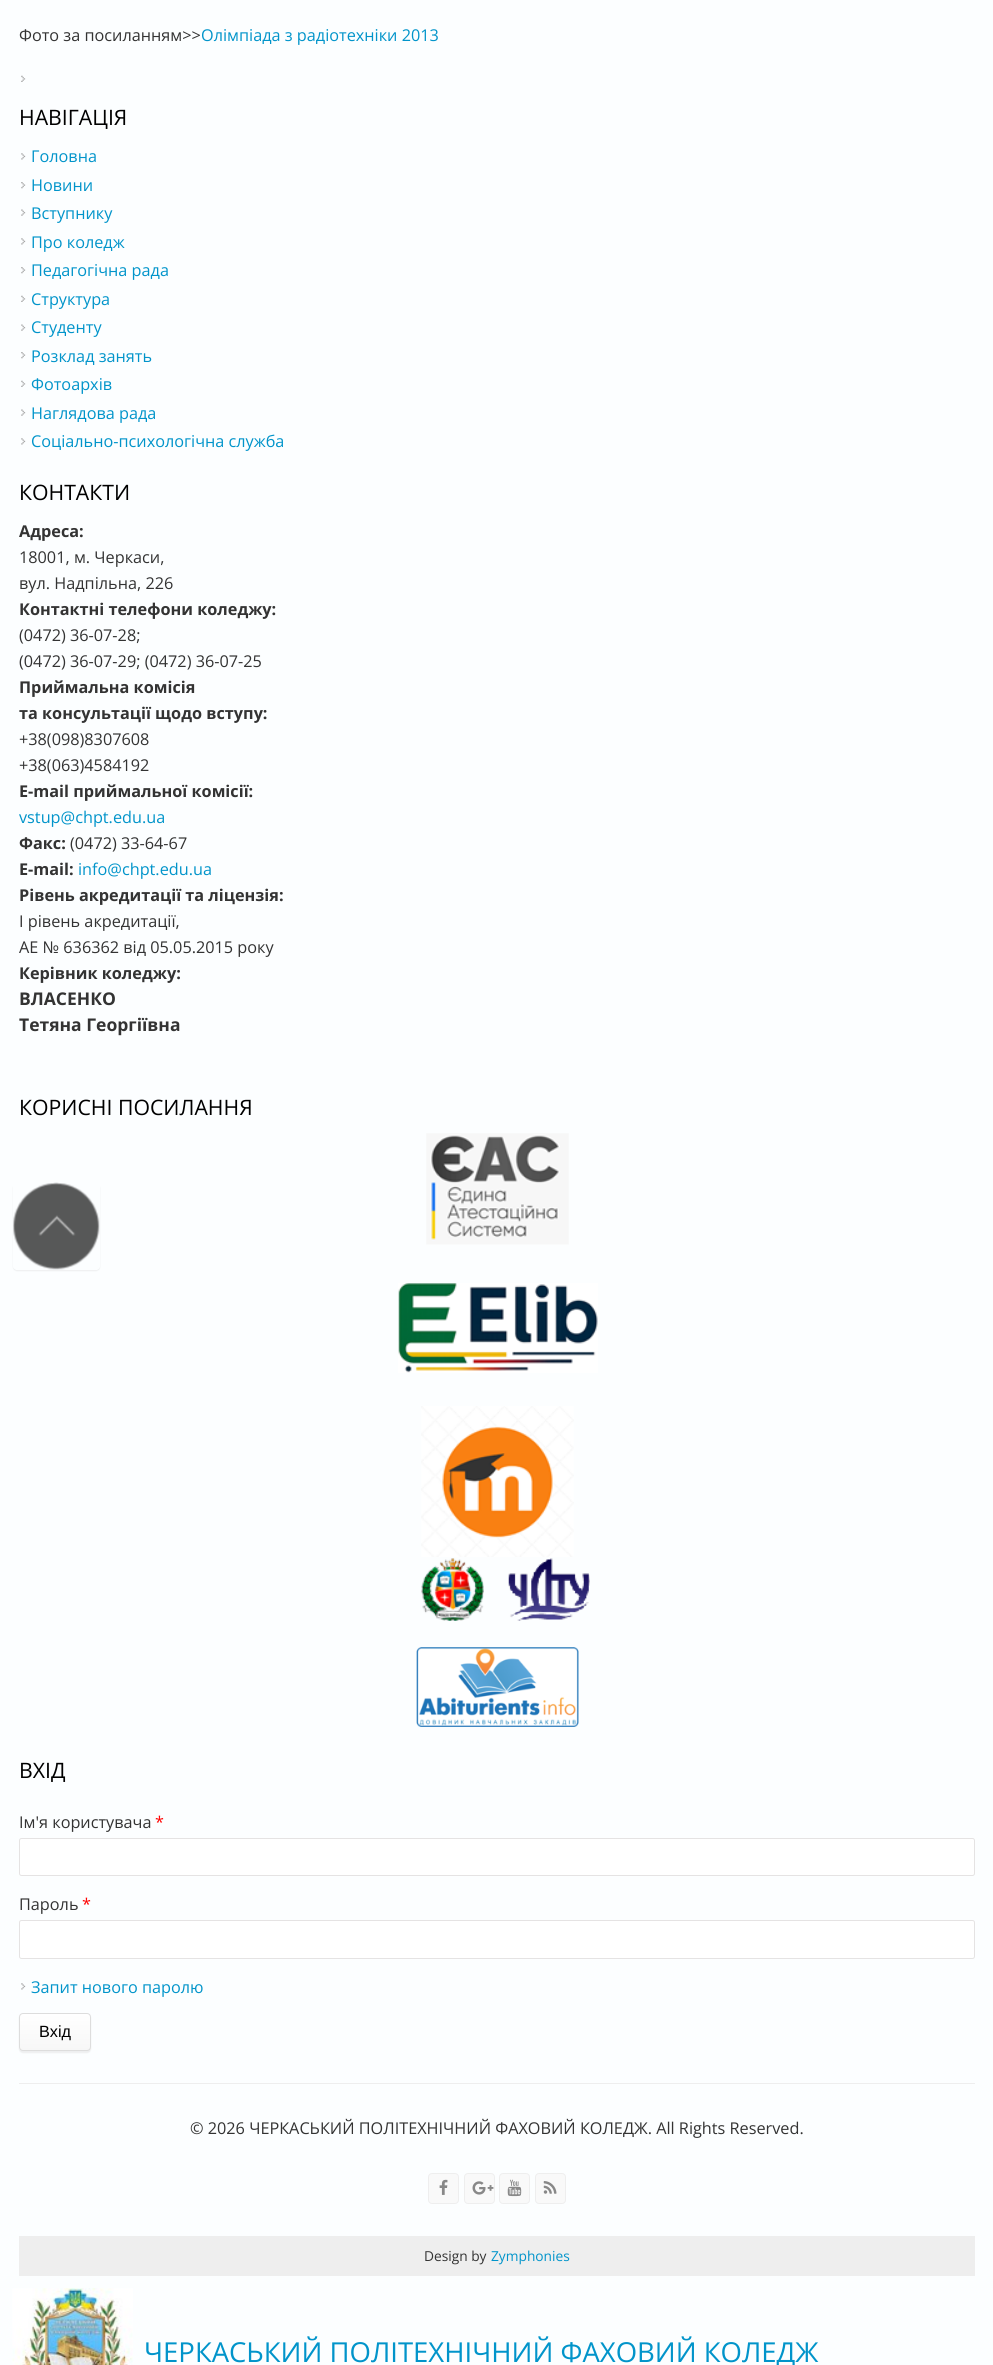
#include <cairo.h>
#include <math.h>
#include <stddef.h>

static cairo_t *c;
static void C(unsigned color){cairo_set_source_rgb(c, (color >> 16) / 255.0, (color >> 8 & 255) / 255.0, (color & 255) / 255.0);}
static void F(const char *family, double size, int italic, int bold){cairo_select_font_face(c, family, italic ? CAIRO_FONT_SLANT_ITALIC : CAIRO_FONT_SLANT_NORMAL,bold ? CAIRO_FONT_WEIGHT_BOLD : CAIRO_FONT_WEIGHT_NORMAL);cairo_set_font_size(c, size);}
static void T(double x, double y, const char *s){cairo_move_to(c, x, y);cairo_show_text(c, s);}
static void R(double x, double y, double w, double h){cairo_rectangle(c, x, y, w, h);cairo_fill(c);}
static void Q(double x, double y, double w, double h, double r){cairo_new_sub_path(c);cairo_arc(c, x + w - r, y + h - r, r, 0, M_PI / 2);cairo_arc(c, x + r, y + h - r, r, M_PI / 2, M_PI);cairo_arc(c, x + r, y + r, r, M_PI, 1.5 * M_PI);cairo_arc(c, x + w - r, y + r, r, 1.5 * M_PI, 2 * M_PI);cairo_close_path(c);}
static void S(double x, double y, double w, double h, double r, double blur, double alpha){cairo_push_group_with_content(c, CAIRO_CONTENT_ALPHA);cairo_set_operator(c, CAIRO_OPERATOR_SOURCE);for (int i = 15; i >= -15 && fmin(w, h) + blur * i / 3 > 0; i -= 2) {double e = blur * i / 6;cairo_set_source_rgba(c, 0, 0, 0, alpha * erfc((i - 1) / 8.5) / 2);Q(x - e, y - e, w + 2 * e, h + 2 * e, fmax(0, fmin(r + e + blur * .6, fmin(w, h) / 2 + e)));cairo_fill(c);}cairo_pattern_t *soft = cairo_pop_group(c);cairo_mask(c, soft);cairo_pattern_destroy(soft);}
static void I(const char *path, double x, double y, double w, double h){cairo_surface_t *image = cairo_image_surface_create_from_png(path);cairo_save(c);cairo_set_source_surface(c, image, x, y);cairo_rectangle(c, x, y, w, h);cairo_fill(c);cairo_restore(c);cairo_surface_destroy(image);}
int main(void) {
cairo_surface_t *surface = cairo_image_surface_create(CAIRO_FORMAT_RGB24, 993, 2365);
c = cairo_create(surface);
cairo_font_options_t *options = cairo_font_options_create();
cairo_font_options_set_hint_metrics(options, CAIRO_HINT_METRICS_OFF);
cairo_font_options_set_hint_style(options, CAIRO_HINT_STYLE_NONE);
cairo_set_font_options(c, options);
cairo_set_miter_limit(c, 4);
cairo_pattern_t *gradient;
C(0xfcfeff);
cairo_paint(c);
F("Open Sans",16.25,0,0);
C(0x333333);
T(19,41,"Фото за посиланням>>");
C(0x0194ca);
T(201,41,"Олімпіада з радіотехніки 2013");
I("1.png",21,75,5,7);
F("Open Sans",21.25,0,0);
C(0x000000);
T(19,125,"НАВІГАЦІЯ");
I("2.png",21,153,5,7);
F("Open Sans",16.25,0,0);
C(0x0194ca);
T(31,162,"Головна");
I("3.png",21,182,5,7);
T(31,191,"Новини");
I("4.png",21,209,5,7);
T(31,219,"Вступнику");
I("2.png",21,238,5,7);
T(31,248,"Про коледж");
I("3.png",21,267,5,7);
T(31,276,"Педагогічна рада");
I("1.png",21,295,5,7);
T(31,305,"Структура");
I("4.png",21,324,5,7);
T(31,333,"Студенту");
I("3.png",21,352,5,7);
T(31,362,"Розклад занять");
I("1.png",21,380,5,7);
T(31,390,"Фотоархів");
I("4.png",21,409,5,7);
T(31,419,"Наглядова рада");
I("2.png",21,438,5,7);
T(31,447,"Соціально-психологічна служба");
F("Open Sans",21.25,0,0);
C(0x000000);
T(19,500,"КОНТАКТИ");
F("Open Sans",16.25,0,1);
C(0x333333);
T(19,537,"Адреса:");
F("Open Sans",16.25,0,0);
T(19,563,"18001, м. Черкаси,");
T(19,589,"вул. Надпільна, 226");
F("Open Sans",16.25,0,1);
T(19,615,"Контактні телефони коледжу:");
F("Open Sans",16.25,0,0);
T(19,641,"(0472) 36-07-28;");
T(19,667,"(0472) 36-07-29; (0472) 36-07-25");
F("Open Sans",16.25,0,1);
T(19,693,"Приймальна комісія");
T(19,719,"та консультації щодо вступу:");
F("Open Sans",16.25,0,0);
T(19,745,"+38(098)8307608");
T(19,771,"+38(063)4584192");
F("Open Sans",16.25,0,1);
T(19,797,"E-mail приймальної комісії:");
F("Open Sans",16.25,0,0);
C(0x0194ca);
T(19,823,"vstup@chpt.edu.ua");
F("Open Sans",16.25,0,1);
C(0x333333);
T(19,849,"Факс:");
F("Open Sans",16.25,0,0);
T(70,849,"(0472) 33-64-67");
F("Open Sans",16.25,0,1);
T(19,875,"E-mail:");
F("Open Sans",16.25,0,0);
C(0x0194ca);
T(78,875,"info@chpt.edu.ua");
F("Open Sans",16.25,0,1);
C(0x333333);
T(19,901,"Рівень акредитації та ліцензія:");
F("Open Sans",16.25,0,0);
T(19,927,"І рівень акредитації,");
T(19,953,"АЕ № 636362 від 05.05.2015 року");
F("Open Sans",16.25,0,1);
T(19,979,"Керівник коледжу:");
F("Open Sans",17.5,0,1);
T(19,1005,"ВЛАСЕНКО");
T(19,1031,"Тетяна Георгіївна");
F("Open Sans",21.25,0,0);
C(0x000000);
T(19,1115,"КОРИСНІ ПОСИЛАННЯ");
I("5.png",426,1133,143,112);
I("6.png",398,1283,200,90);
I("7.png",421,1406,153,151);
I("8.png",421,1558,63,63);
I("9.png",508,1558,82,63);
I("10.png",416,1647,163,80);
T(19,1778,"ВХІД");
F("Open Sans",16.25,0,0);
C(0x333333);
T(19,1828,"Ім'я користувача");
C(0xff0000);
T(155,1828,"*");
C(0xffffff);
Q(19.5,1838.5,955,37,2);
cairo_fill_preserve(c);
C(0xe5e3e3);
cairo_set_line_width(c,1);
cairo_stroke(c);
C(0x333333);
T(19,1910,"Пароль");
C(0xff0000);
T(82,1910,"*");
C(0xffffff);
Q(19.5,1920.5,955,38,2);
cairo_fill_preserve(c);
C(0xe5e3e3);
cairo_stroke(c);
I("2.png",21,1983,5,7);
C(0x0194ca);
T(31,1993,"Запит нового паролю");
C(0xb4b4b4);
S(19,2014,72,39,4,.5,.2);
cairo_save(c);
Q(19,2013,72,38,4);
cairo_clip(c);
gradient = cairo_pattern_create_linear(55,2050,55,2014);
cairo_pattern_add_color_stop_rgba(gradient,0,0.969,0.969,0.969,1);
cairo_pattern_add_color_stop_rgba(gradient,1,1,1,1,1);
cairo_set_source(c,gradient);
cairo_pattern_destroy(gradient);
R(19,2014,72,36);
cairo_restore(c);
Q(19.5,2013.5,71,37,3.5);
C(0xdddddd);
cairo_stroke(c);
F("Liberation Sans",16.25,0,0);
C(0x000000);
T(39,2037,"Вхід");
cairo_save(c);
cairo_set_fill_rule(c,CAIRO_FILL_RULE_EVEN_ODD);
cairo_new_path(c);
cairo_move_to(c,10,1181);
cairo_line_to(c,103,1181);
cairo_line_to(c,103,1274);
cairo_line_to(c,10,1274);
cairo_close_path(c);
cairo_move_to(c,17,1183);
cairo_line_to(c,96,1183);
cairo_curve_to(c,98,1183,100,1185,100,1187);
cairo_line_to(c,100,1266);
cairo_curve_to(c,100,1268,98,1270,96,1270);
cairo_line_to(c,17,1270);
cairo_curve_to(c,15,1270,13,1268,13,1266);
cairo_line_to(c,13,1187);
cairo_curve_to(c,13,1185,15,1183,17,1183);
cairo_close_path(c);
cairo_clip(c);
C(0xb4b4b4);
S(13,1184,87,87,4,.5,.2);
cairo_restore(c);
I("11.png",13,1182,87,88);
C(0xeeeeee);
R(19,2083,956,1);
F("Open Sans",16.25,0,0);
C(0x333333);
T(190,2134,"© 2026 ЧЕРКАСЬКИЙ ПОЛІТЕХНІЧНИЙ ФАХОВИЙ КОЛЕДЖ. All Rights Reserved.");
C(0xf9f9f9);
Q(428.5,2173.5,30,30,3.5);
cairo_fill_preserve(c);
C(0xeeeeee);
cairo_stroke(c);
I("12.png",439,2179,9,16);
C(0xf9f9f9);
Q(464.5,2173.5,30,30,3.5);
cairo_fill_preserve(c);
C(0xeeeeee);
cairo_stroke(c);
I("13.png",472,2181,22,14);
C(0xf9f9f9);
Q(499.5,2173.5,30,30,3.5);
cairo_fill_preserve(c);
C(0xeeeeee);
cairo_stroke(c);
I("14.png",507,2179,15,18);
C(0xf9f9f9);
Q(535.5,2173.5,30,30,3.5);
cairo_fill_preserve(c);
C(0xeeeeee);
cairo_stroke(c);
I("15.png",543,2181,14,13);
R(19,2236,956,40);
F("Open Sans",13.75,0,0);
C(0x333333);
T(424,2261,"Design by");
C(0x0194ca);
T(491,2261,"Zymphonies");
I("16.png",12,2288,121,77);
F("Open Sans",27.5,0,0);
T(144,2362,"ЧЕРКАСЬКИЙ ПОЛІТЕХНІЧНИЙ ФАХОВИЙ КОЛЕДЖ");
cairo_surface_write_to_png(surface, "o.png");
cairo_font_options_destroy(options);
cairo_destroy(c);
cairo_surface_destroy(surface);
return 0;
}
